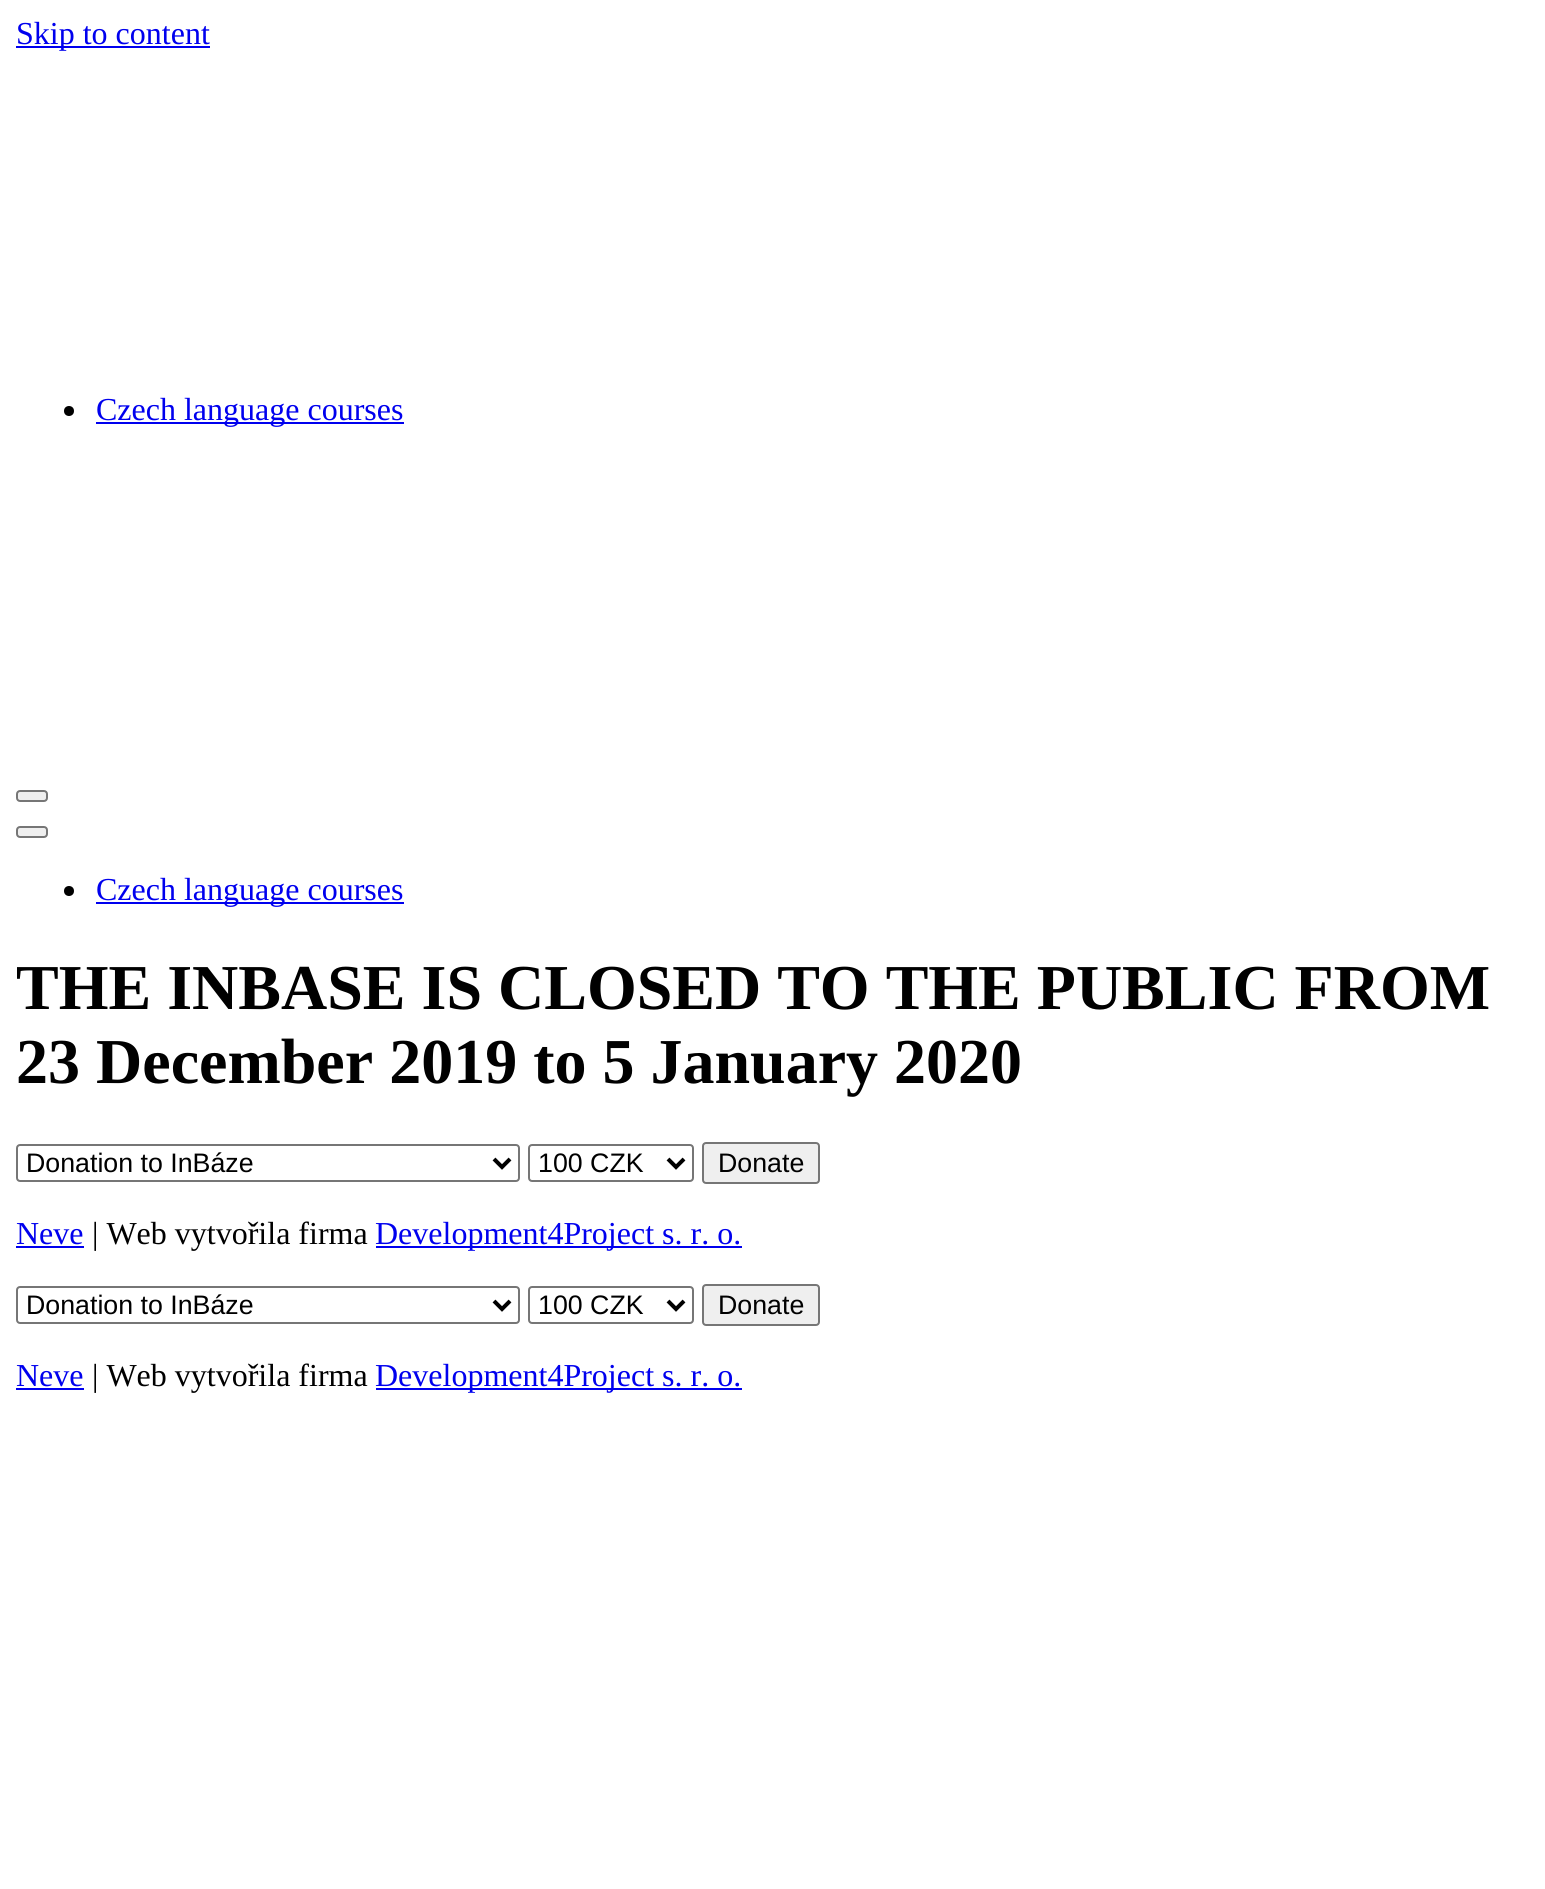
#include <cairo.h>
#include <math.h>
#include <stddef.h>

static cairo_t *c;
static void C(unsigned color){cairo_set_source_rgb(c, (color >> 16) / 255.0, (color >> 8 & 255) / 255.0, (color & 255) / 255.0);}
static void F(const char *family, double size, int italic, int bold){cairo_select_font_face(c, family, italic ? CAIRO_FONT_SLANT_ITALIC : CAIRO_FONT_SLANT_NORMAL,bold ? CAIRO_FONT_WEIGHT_BOLD : CAIRO_FONT_WEIGHT_NORMAL);cairo_set_font_size(c, size);}
static void T(double x, double y, const char *s){cairo_move_to(c, x, y);cairo_show_text(c, s);}
static void R(double x, double y, double w, double h){cairo_rectangle(c, x, y, w, h);cairo_fill(c);}
static void Q(double x, double y, double w, double h, double r){cairo_new_sub_path(c);cairo_arc(c, x + w - r, y + h - r, r, 0, M_PI / 2);cairo_arc(c, x + r, y + h - r, r, M_PI / 2, M_PI);cairo_arc(c, x + r, y + r, r, M_PI, 1.5 * M_PI);cairo_arc(c, x + w - r, y + r, r, 1.5 * M_PI, 2 * M_PI);cairo_close_path(c);}
int main(void) {
cairo_surface_t *surface = cairo_image_surface_create(CAIRO_FORMAT_RGB24, 1545, 1889);
c = cairo_create(surface);
cairo_font_options_t *options = cairo_font_options_create();
cairo_font_options_set_hint_metrics(options, CAIRO_HINT_METRICS_OFF);
cairo_font_options_set_hint_style(options, CAIRO_HINT_STYLE_NONE);
cairo_set_font_options(c, options);
cairo_set_miter_limit(c, 4);
C(0xffffff);
cairo_paint(c);
C(0x0000ee);
R(16,46,194,2);
F("Liberation Serif",32,0,0);
T(16,44,"Skip to content");
C(0x000000);
cairo_new_path(c);
cairo_arc(c,69,411,5,0,2 * M_PI);
cairo_fill(c);
C(0x0000ee);
R(96,422,308,2);
T(96,420,"Czech language courses");
C(0xefefef);
Q(17,791,30,10,3);
cairo_fill_preserve(c);
C(0x767676);
cairo_stroke(c);
C(0xefefef);
Q(17,827,30,10,3);
cairo_fill_preserve(c);
C(0x767676);
cairo_stroke(c);
C(0x000000);
cairo_arc(c,69,891,5,0,2 * M_PI);
cairo_fill(c);
C(0x0000ee);
R(96,902,308,2);
T(96,900,"Czech language courses");
F("Liberation Serif",64,0,1);
C(0x000000);
T(16,1009,"THE INBASE IS CLOSED TO THE PUBLIC FROM");
T(16,1083,"23 December 2019 to 5 January 2020");
Q(17,1145,502,36,3);
C(0x767676);
cairo_stroke(c);
cairo_new_path(c);
cairo_move_to(c,494,1159);
cairo_line_to(c,502,1167);
cairo_line_to(c,510,1159);
C(0x000000);
cairo_set_line_width(c,4);
cairo_stroke(c);
F("Liberation Sans",26.75,0,0);
T(26,1172,"Donation to InBáze");
Q(529,1145,164,36,3);
C(0x767676);
cairo_set_line_width(c,2);
cairo_stroke(c);
cairo_new_path(c);
cairo_move_to(c,668,1159);
cairo_line_to(c,676,1167);
cairo_line_to(c,684,1159);
C(0x000000);
cairo_set_line_width(c,4);
cairo_stroke(c);
T(538,1172,"100 CZK");
C(0xefefef);
Q(703,1143,116,40,3);
cairo_fill_preserve(c);
C(0x767676);
cairo_set_line_width(c,2);
cairo_stroke(c);
C(0x000000);
T(718,1172,"Donate");
F("Liberation Serif",32,0,0);
C(0x0000ee);
T(16,1244,"Neve");
R(16,1246,68,2);
C(0x000000);
T(92,1244,"| Web vytvořila firma");
C(0x0000ee);
R(376,1246,366,2);
T(375,1244,"Development4Project s. r. o.");
Q(17,1287,502,36,3);
C(0x767676);
cairo_stroke(c);
cairo_new_path(c);
cairo_move_to(c,494,1301);
cairo_line_to(c,502,1309);
cairo_line_to(c,510,1301);
C(0x000000);
cairo_set_line_width(c,4);
cairo_stroke(c);
F("Liberation Sans",26.75,0,0);
T(26,1314,"Donation to InBáze");
Q(529,1287,164,36,3);
C(0x767676);
cairo_set_line_width(c,2);
cairo_stroke(c);
cairo_new_path(c);
cairo_move_to(c,668,1301);
cairo_line_to(c,676,1309);
cairo_line_to(c,684,1301);
C(0x000000);
cairo_set_line_width(c,4);
cairo_stroke(c);
T(538,1314,"100 CZK");
C(0xefefef);
Q(703,1285,116,40,3);
cairo_fill_preserve(c);
C(0x767676);
cairo_set_line_width(c,2);
cairo_stroke(c);
C(0x000000);
T(718,1314,"Donate");
F("Liberation Serif",32,0,0);
C(0x0000ee);
T(16,1386,"Neve");
R(16,1388,68,2);
C(0x000000);
T(92,1386,"| Web vytvořila firma");
C(0x0000ee);
R(376,1388,366,2);
T(375,1386,"Development4Project s. r. o.");
cairo_surface_write_to_png(surface, "o.png");
cairo_font_options_destroy(options);
cairo_destroy(c);
cairo_surface_destroy(surface);
return 0;
}
